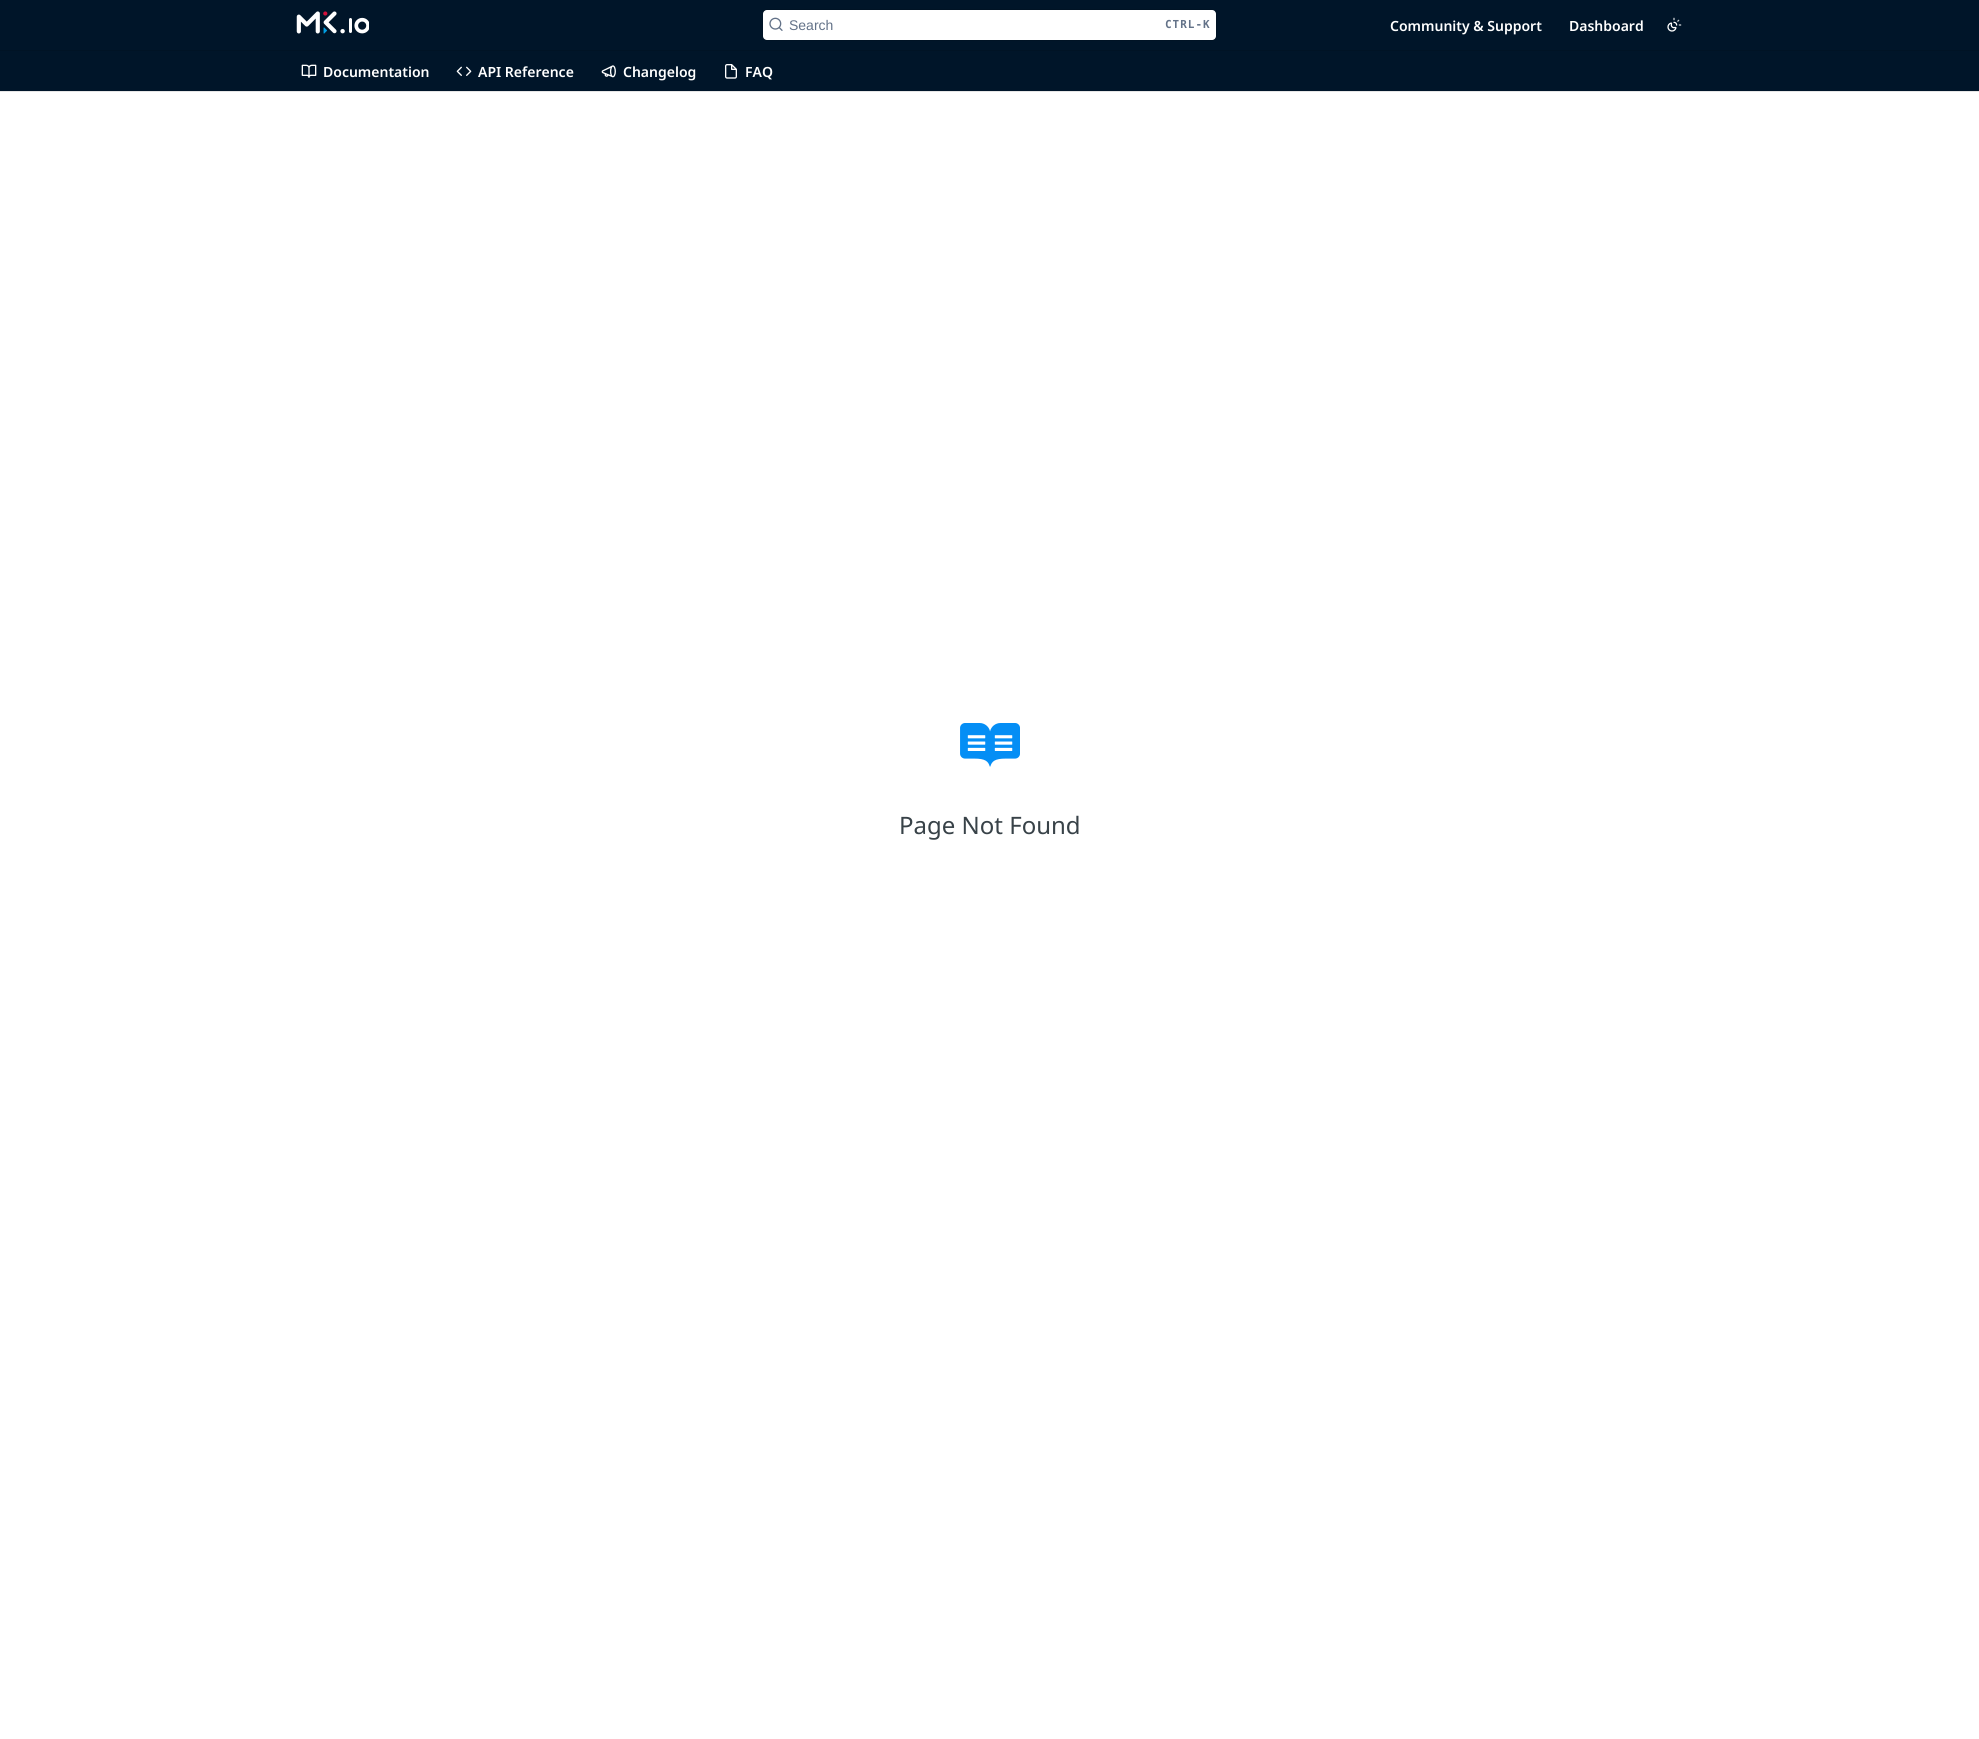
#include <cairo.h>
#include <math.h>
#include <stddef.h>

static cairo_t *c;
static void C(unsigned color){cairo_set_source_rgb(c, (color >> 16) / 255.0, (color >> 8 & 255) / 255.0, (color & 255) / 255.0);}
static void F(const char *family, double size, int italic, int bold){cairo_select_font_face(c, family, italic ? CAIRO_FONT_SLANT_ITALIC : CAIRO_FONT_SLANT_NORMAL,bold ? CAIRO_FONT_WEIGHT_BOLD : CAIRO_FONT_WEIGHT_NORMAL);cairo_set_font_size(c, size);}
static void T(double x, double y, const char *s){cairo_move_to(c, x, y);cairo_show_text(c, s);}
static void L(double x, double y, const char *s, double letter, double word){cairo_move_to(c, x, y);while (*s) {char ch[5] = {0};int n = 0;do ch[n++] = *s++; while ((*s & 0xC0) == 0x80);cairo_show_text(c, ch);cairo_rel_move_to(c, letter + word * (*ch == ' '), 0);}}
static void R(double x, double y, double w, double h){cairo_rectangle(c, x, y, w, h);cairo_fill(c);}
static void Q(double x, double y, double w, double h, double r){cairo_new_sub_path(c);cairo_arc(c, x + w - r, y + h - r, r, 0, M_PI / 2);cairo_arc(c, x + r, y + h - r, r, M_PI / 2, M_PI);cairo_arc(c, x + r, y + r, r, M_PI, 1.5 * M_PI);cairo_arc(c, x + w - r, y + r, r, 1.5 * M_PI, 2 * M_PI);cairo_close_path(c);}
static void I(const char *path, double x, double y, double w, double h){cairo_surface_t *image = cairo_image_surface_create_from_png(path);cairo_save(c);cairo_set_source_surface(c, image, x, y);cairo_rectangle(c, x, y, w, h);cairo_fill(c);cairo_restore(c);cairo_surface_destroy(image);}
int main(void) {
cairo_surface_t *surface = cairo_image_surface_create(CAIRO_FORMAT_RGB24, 1979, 1739);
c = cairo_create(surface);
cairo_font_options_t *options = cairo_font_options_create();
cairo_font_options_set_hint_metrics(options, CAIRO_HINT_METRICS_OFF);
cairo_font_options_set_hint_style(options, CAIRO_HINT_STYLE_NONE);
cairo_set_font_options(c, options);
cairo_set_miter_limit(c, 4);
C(0xffffff);
cairo_paint(c);
C(0xe6e6e6);
R(0,91,1979,1);
C(0x001529);
R(0,0,1979,91);
C(0x001325);
R(0,50,1979,1);
I("1.png",296,11,73,23);
Q(762.5,9.5,454,31,4.5);
cairo_set_line_width(c,1);
cairo_stroke(c);
C(0xffffff);
Q(763,10,453,30,4);
cairo_fill(c);
I("2.png",769,17,14,14);
F("Liberation Sans",14,0,0);
C(0x637288);
T(789,30,"Search");
F("DejaVu Sans Mono",11,0,1);
L(1165,28,"CTRL-K",1,0);
F("Noto Sans SemiBold",14,0,0);
C(0xffffff);
T(1390,31,"Community & Support");
T(1569,31,"Dashboard");
I("3.png",1667,17,15,15);
I("4.png",301,64,16,14);
T(323,77,"Documentation");
I("5.png",456,66,16,10);
T(478,77,"API Reference");
I("6.png",601,65,15,13);
T(623,77,"Changelog");
I("7.png",725,64,12,15);
T(745,77,"FAQ");
I("8.png",960,723,60,44);
F("Noto Sans",24,0,0);
C(0x384248);
T(899,834,"Page Not Found");
cairo_surface_write_to_png(surface, "o.png");
cairo_font_options_destroy(options);
cairo_destroy(c);
cairo_surface_destroy(surface);
return 0;
}
